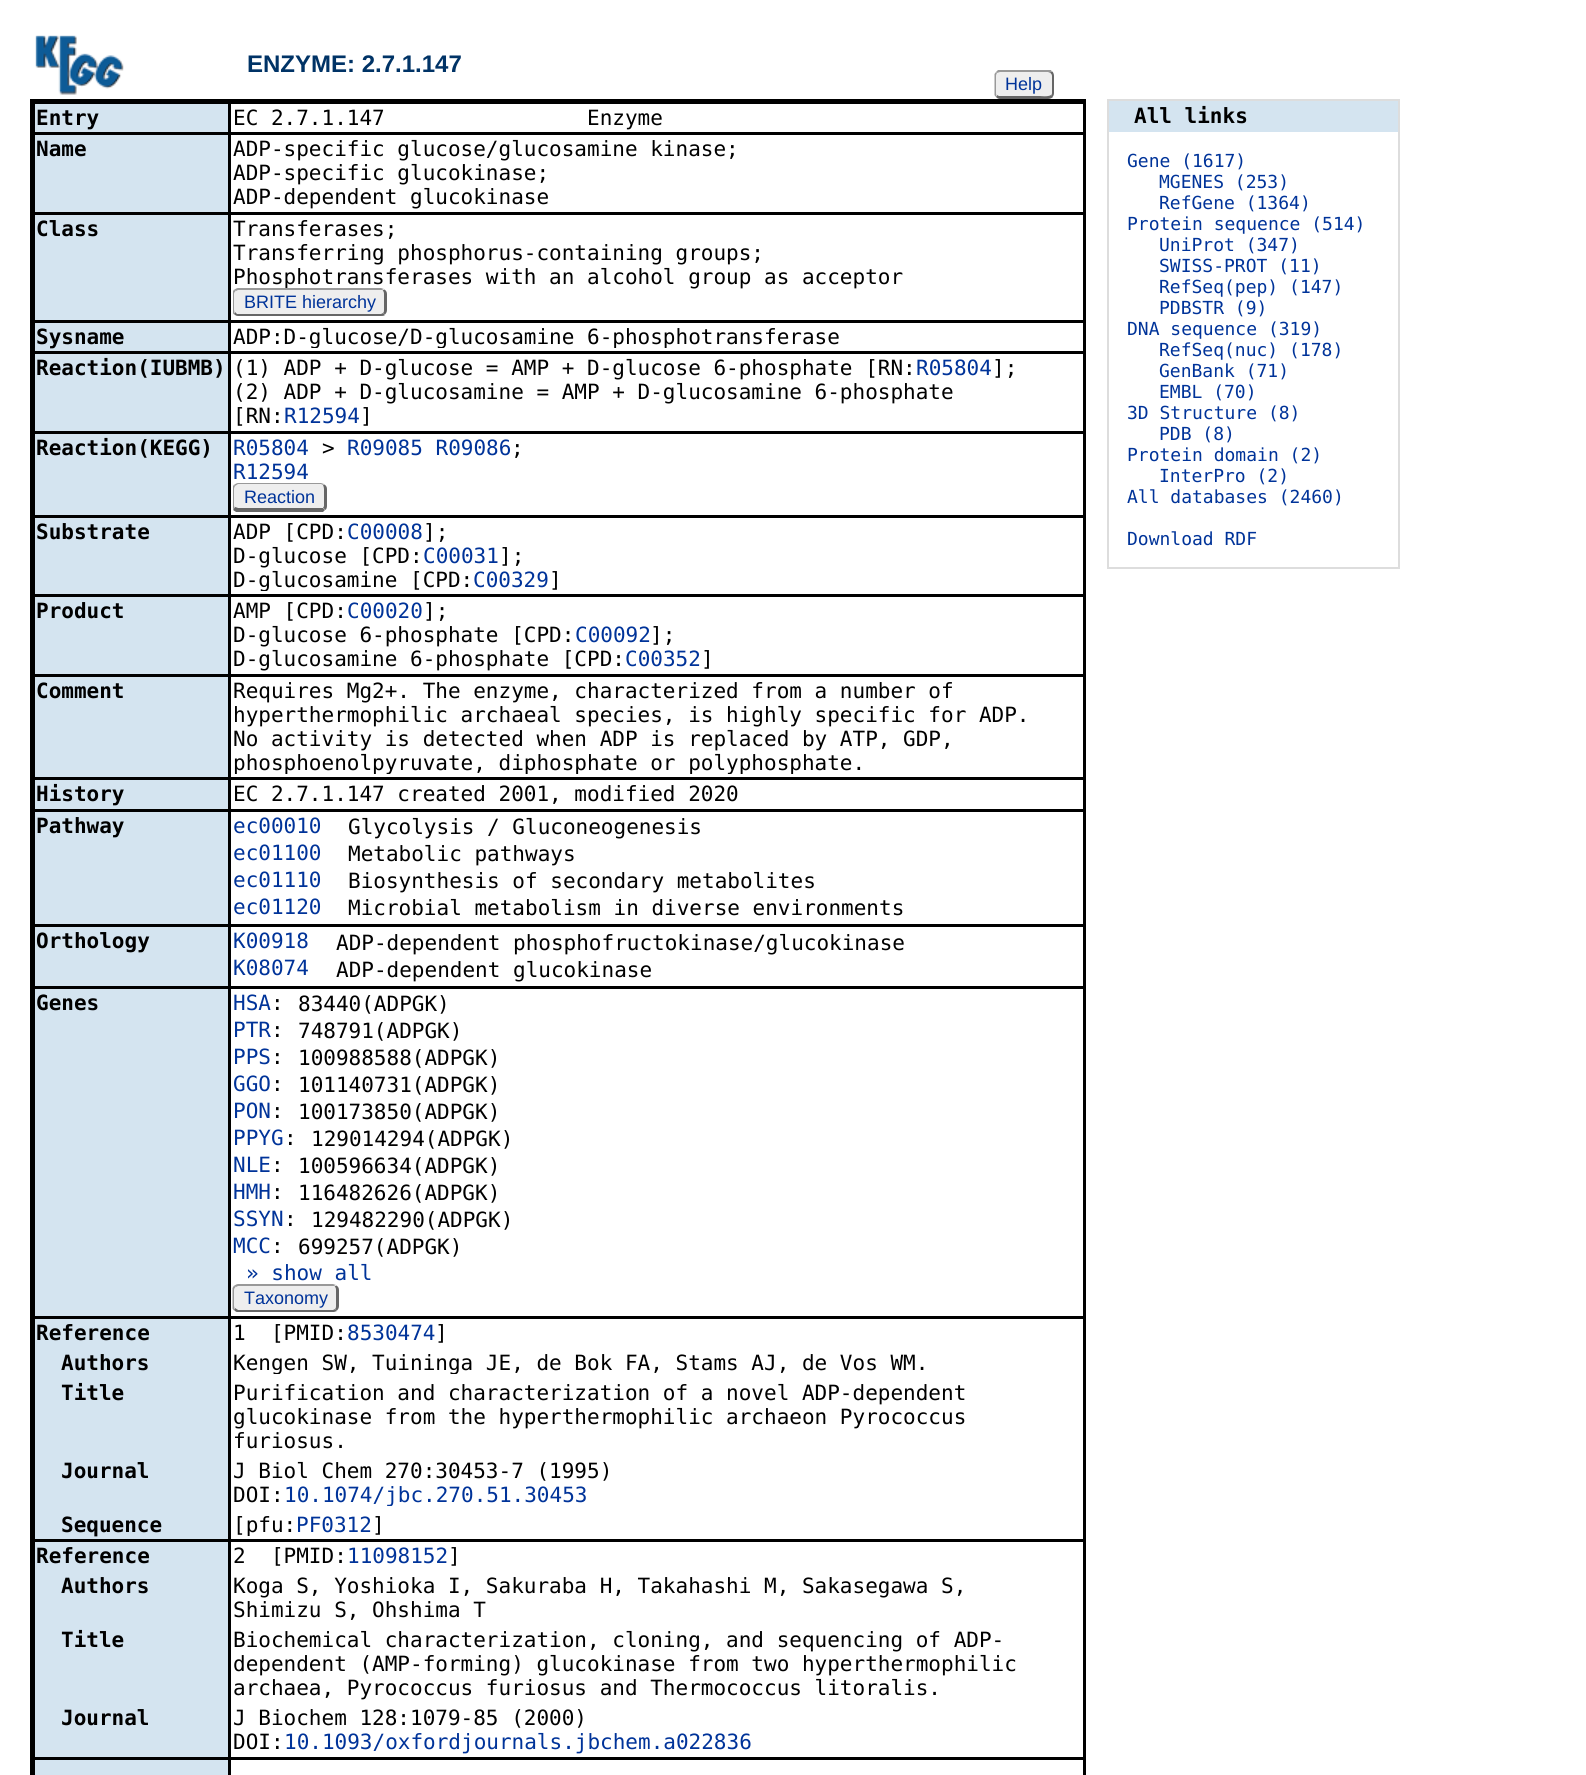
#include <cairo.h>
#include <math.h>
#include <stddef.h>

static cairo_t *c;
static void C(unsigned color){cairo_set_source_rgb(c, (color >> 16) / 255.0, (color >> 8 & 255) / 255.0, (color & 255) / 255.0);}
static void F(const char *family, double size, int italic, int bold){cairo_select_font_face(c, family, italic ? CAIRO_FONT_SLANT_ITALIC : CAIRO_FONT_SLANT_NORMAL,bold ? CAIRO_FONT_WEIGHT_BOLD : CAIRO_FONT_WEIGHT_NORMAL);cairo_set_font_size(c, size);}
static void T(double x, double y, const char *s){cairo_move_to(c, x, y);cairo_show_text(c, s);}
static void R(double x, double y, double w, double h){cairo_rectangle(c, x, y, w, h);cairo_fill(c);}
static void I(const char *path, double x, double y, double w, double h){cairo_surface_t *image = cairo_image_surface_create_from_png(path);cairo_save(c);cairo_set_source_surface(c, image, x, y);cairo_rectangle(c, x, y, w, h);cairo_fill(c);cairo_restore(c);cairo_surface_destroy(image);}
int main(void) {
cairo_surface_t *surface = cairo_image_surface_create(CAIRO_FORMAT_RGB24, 1586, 1775);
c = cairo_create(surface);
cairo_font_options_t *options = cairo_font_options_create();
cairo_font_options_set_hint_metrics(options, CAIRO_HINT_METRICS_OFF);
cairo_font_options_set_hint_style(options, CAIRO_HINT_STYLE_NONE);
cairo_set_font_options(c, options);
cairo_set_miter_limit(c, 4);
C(0xffffff);
cairo_paint(c);
I("1.png",35,35,89,60);
F("Liberation Sans",24,0,1);
C(0x003366);
T(247,72,"ENZYME: 2.7.1.147");
C(0xeeeeee);
cairo_new_path(c);
cairo_move_to(c,1000,72);
cairo_line_to(c,1048,72);
cairo_curve_to(c,1050,72,1052,74,1052,76);
cairo_line_to(c,1052,93);
cairo_curve_to(c,1052,95,1050,96,1048,96);
cairo_line_to(c,1000,96);
cairo_curve_to(c,998,96,996,95,996,93);
cairo_line_to(c,996,76);
cairo_curve_to(c,996,74,998,72,1000,72);
cairo_close_path(c);
cairo_fill(c);
C(0x999999);
cairo_new_path(c);
cairo_move_to(c,1000,72);
cairo_line_to(c,997,73);
cairo_line_to(c,996,72);
cairo_line_to(c,998,70);
cairo_line_to(c,1051,70);
cairo_line_to(c,1052,72);
cairo_line_to(c,1050,73);
cairo_line_to(c,1048,72);
cairo_close_path(c);
cairo_fill(c);
C(0x666666);
cairo_new_path(c);
cairo_move_to(c,1052.5,71.5);
cairo_curve_to(c,1053.5,73,1054,74.5,1054,76);
cairo_line_to(c,1054,93);
cairo_curve_to(c,1054,94.5,1053.5,96,1052.5,97);
cairo_line_to(c,1051,95);
cairo_curve_to(c,1051.5,95,1052,94,1052,93);
cairo_line_to(c,1052,76);
cairo_curve_to(c,1052,74.5,1051,73.5,1050,72.5);
cairo_close_path(c);
cairo_fill(c);
cairo_new_path(c);
cairo_move_to(c,1000,99);
cairo_line_to(c,1048,99);
cairo_curve_to(c,1050,99,1052,98,1053,97);
cairo_line_to(c,1051,95);
cairo_curve_to(c,1048,97,1041,96,1040,96);
cairo_line_to(c,999,96);
cairo_line_to(c,997,95);
cairo_line_to(c,996,97);
cairo_curve_to(c,997,98,998,99,1000,99);
cairo_close_path(c);
cairo_fill(c);
C(0x999999);
cairo_new_path(c);
cairo_move_to(c,994.5,74);
cairo_line_to(c,996,72);
cairo_line_to(c,997,73);
cairo_curve_to(c,996.5,74,996,75,996,76);
cairo_line_to(c,996,93);
cairo_curve_to(c,996,93.5,996,94.5,996.5,94.5);
cairo_line_to(c,995.5,97);
cairo_line_to(c,994.5,95);
cairo_close_path(c);
cairo_fill(c);
F("Liberation Sans",18,0,0);
C(0x003399);
T(1005,90,"Help");
C(0x000000);
R(30,99,1056,1676);
C(0xd4e4f0);
R(35,104,193,28);
F("DejaVu Sans Mono",21,0,1);
C(0x000000);
T(36,125,"Entry");
C(0xffffff);
R(231,104,852,28);
F("DejaVu Sans Mono",21,0,0);
C(0x000000);
T(233,125,"EC 2.7.1.147                Enzyme");
C(0xd4e4f0);
R(35,135,193,77);
F("DejaVu Sans Mono",21,0,1);
C(0x000000);
T(36,156,"Name");
C(0xffffff);
R(231,135,852,77);
F("DejaVu Sans Mono",21,0,0);
C(0x000000);
T(233,156,"ADP-specific glucose/glucosamine kinase;");
T(233,180,"ADP-specific glucokinase;");
T(233,204,"ADP-dependent glucokinase");
C(0xd4e4f0);
R(35,215,193,105);
F("DejaVu Sans Mono",21,0,1);
C(0x000000);
T(36,236,"Class");
C(0xffffff);
R(231,215,852,105);
F("DejaVu Sans Mono",21,0,0);
C(0x000000);
T(233,236,"Transferases;");
T(233,260,"Transferring phosphorus-containing groups;");
T(233,284,"Phosphotransferases with an alcohol group as acceptor");
C(0xeeeeee);
cairo_new_path(c);
cairo_move_to(c,238,290);
cairo_line_to(c,381,290);
cairo_curve_to(c,383,290,384,292,384,294);
cairo_line_to(c,384,310);
cairo_curve_to(c,384,312,383,314,381,314);
cairo_line_to(c,238,314);
cairo_curve_to(c,236,314,234,312,234,310);
cairo_line_to(c,234,294);
cairo_curve_to(c,234,292,236,290,238,290);
cairo_close_path(c);
cairo_fill(c);
C(0x999999);
cairo_new_path(c);
cairo_move_to(c,238,288);
cairo_curve_to(c,237,288,235,289,234,290);
cairo_line_to(c,236,291);
cairo_line_to(c,238,290);
cairo_line_to(c,382,290);
cairo_line_to(c,384,289);
cairo_line_to(c,381,288);
cairo_close_path(c);
cairo_fill(c);
C(0x666666);
cairo_new_path(c);
cairo_move_to(c,387,310);
cairo_line_to(c,387,294);
cairo_curve_to(c,387,292,386,290.5,384.5,289.5);
cairo_line_to(c,382.5,290.5);
cairo_curve_to(c,383.5,291,384,292.5,384,294);
cairo_line_to(c,384,310);
cairo_curve_to(c,384,311,384,312,383,313);
cairo_line_to(c,385,314.5);
cairo_curve_to(c,386,313.5,387,312,387,310);
cairo_close_path(c);
cairo_fill(c);
cairo_new_path(c);
cairo_move_to(c,385,315);
cairo_curve_to(c,384,316,382,316,381,316);
cairo_line_to(c,238,316);
cairo_curve_to(c,236,316,235,315,234,314);
cairo_line_to(c,235,312);
cairo_line_to(c,237,314);
cairo_line_to(c,381,314);
cairo_line_to(c,383,313);
cairo_close_path(c);
cairo_fill(c);
cairo_save(c);
cairo_rectangle(c,233,216,832,101);
cairo_clip(c);
C(0x999999);
cairo_new_path(c);
cairo_move_to(c,232.5,292);
cairo_line_to(c,234,289.5);
cairo_line_to(c,235.5,291);
cairo_curve_to(c,234.5,292,234,293,234,294);
cairo_line_to(c,234,310);
cairo_curve_to(c,234,310.5,234.5,311.5,234.5,312);
cairo_line_to(c,233.5,314.5);
cairo_line_to(c,232.5,312.5);
cairo_close_path(c);
cairo_fill(c);
cairo_restore(c);
F("Liberation Sans",18,0,0);
C(0x003399);
T(244,308,"BRITE hierarchy");
C(0xd4e4f0);
R(35,323,193,28);
F("DejaVu Sans Mono",21,0,1);
C(0x000000);
T(36,344,"Sysname");
C(0xffffff);
R(231,323,852,28);
cairo_save(c);
cairo_rectangle(c,233,324,832,24);
cairo_clip(c);
F("DejaVu Sans Mono",21,0,0);
C(0x000000);
T(233,344,"ADP:D-glucose/D-glucosamine 6-phosphotransferase");
cairo_restore(c);
C(0xd4e4f0);
R(35,354,193,77);
C(0x000000);
T(36,375,"Reaction(IUBMB)");
C(0xffffff);
R(231,354,852,77);
F("DejaVu Sans Mono",21,0,0);
C(0x000000);
T(233,375,"(1) ADP + D-glucose = AMP + D-glucose 6-phosphate [RN:");
C(0x003399);
T(916,375,"R05804");
C(0x000000);
T(992,375,"];");
T(233,399,"(2) ADP + D-glucosamine = AMP + D-glucosamine 6-phosphate");
T(233,423,"[RN:");
C(0x003399);
T(284,423,"R12594");
C(0x000000);
T(360,423,"]");
C(0xd4e4f0);
R(35,434,193,81);
F("DejaVu Sans Mono",21,0,1);
C(0x000000);
T(36,455,"Reaction(KEGG)");
C(0xffffff);
R(231,434,852,81);
F("DejaVu Sans Mono",21,0,0);
C(0x003399);
T(233,455,"R05804");
C(0x000000);
T(322,455,">");
C(0x003399);
T(347,455,"R09085 R09086");
C(0x000000);
T(511,455,";");
C(0x003399);
T(233,479,"R12594");
C(0xeeeeee);
cairo_new_path(c);
cairo_move_to(c,238,484);
cairo_line_to(c,321,484);
cairo_curve_to(c,323,484,324,487,324,489);
cairo_line_to(c,324,506);
cairo_curve_to(c,324,507,323,508,321,508);
cairo_line_to(c,238,508);
cairo_curve_to(c,236,508,234,507,234,506);
cairo_line_to(c,234,489);
cairo_curve_to(c,234,487,236,484,238,484);
cairo_close_path(c);
cairo_fill(c);
C(0x999999);
cairo_new_path(c);
cairo_move_to(c,238,483);
cairo_curve_to(c,237,483,235,484,234,485);
cairo_line_to(c,235,486);
cairo_line_to(c,238,484);
cairo_line_to(c,321,484);
cairo_line_to(c,323,485);
cairo_line_to(c,324,484);
cairo_line_to(c,321,483);
cairo_close_path(c);
cairo_fill(c);
C(0x666666);
cairo_new_path(c);
cairo_move_to(c,327,506);
cairo_line_to(c,327,489);
cairo_curve_to(c,327,487,326,485.5,324.5,484.5);
cairo_line_to(c,323,485);
cairo_curve_to(c,323.5,486,324,488,324,489);
cairo_line_to(c,324,506);
cairo_curve_to(c,324,506.5,323.5,507,323,507.5);
cairo_line_to(c,325.5,510);
cairo_curve_to(c,326.5,509,327,507.5,327,506);
cairo_close_path(c);
cairo_fill(c);
cairo_new_path(c);
cairo_move_to(c,236,512);
cairo_line_to(c,233,510);
cairo_line_to(c,235,507);
cairo_line_to(c,238,508);
cairo_line_to(c,321,508);
cairo_line_to(c,323,508);
cairo_line_to(c,325,510);
cairo_line_to(c,323,512);
cairo_close_path(c);
cairo_fill(c);
cairo_save(c);
cairo_rectangle(c,233,435,832,77);
cairo_clip(c);
C(0x999999);
cairo_new_path(c);
cairo_move_to(c,232.5,487);
cairo_line_to(c,234,484.5);
cairo_line_to(c,235,486);
cairo_curve_to(c,234.5,487,234,488,234,489);
cairo_line_to(c,234,506);
cairo_curve_to(c,234,506.5,234.5,506.5,234.5,507);
cairo_line_to(c,233.5,509.5);
cairo_line_to(c,232.5,508);
cairo_close_path(c);
cairo_fill(c);
cairo_restore(c);
F("Liberation Sans",18,0,0);
C(0x003399);
T(244,503,"Reaction");
C(0xd4e4f0);
R(35,518,193,76);
F("DejaVu Sans Mono",21,0,1);
C(0x000000);
T(36,539,"Substrate");
C(0xffffff);
R(231,518,852,76);
F("DejaVu Sans Mono",21,0,0);
C(0x000000);
T(233,539,"ADP [CPD:");
C(0x003399);
T(347,539,"C00008");
C(0x000000);
T(423,539,"];");
T(233,563,"D-glucose [CPD:");
C(0x003399);
T(423,563,"C00031");
C(0x000000);
T(499,563,"];");
cairo_save(c);
cairo_rectangle(c,233,519,832,72);
cairo_clip(c);
T(233,587,"D-glucosamine [CPD:");
cairo_restore(c);
C(0x003399);
T(473,587,"C00329");
C(0x000000);
T(549,587,"]");
C(0xd4e4f0);
R(35,597,193,77);
F("DejaVu Sans Mono",21,0,1);
C(0x000000);
T(36,618,"Product");
C(0xffffff);
R(231,597,852,77);
F("DejaVu Sans Mono",21,0,0);
C(0x000000);
T(233,618,"AMP [CPD:");
C(0x003399);
T(347,618,"C00020");
C(0x000000);
T(423,618,"];");
T(233,642,"D-glucose 6-phosphate [CPD:");
C(0x003399);
T(575,642,"C00092");
C(0x000000);
T(650,642,"];");
T(233,666,"D-glucosamine 6-phosphate [CPD:");
C(0x003399);
T(625,666,"C00352");
C(0x000000);
T(701,666,"]");
C(0xd4e4f0);
R(35,677,193,100);
F("DejaVu Sans Mono",21,0,1);
C(0x000000);
T(36,698,"Comment");
C(0xffffff);
R(231,677,852,100);
F("DejaVu Sans Mono",21,0,0);
C(0x000000);
T(233,698,"Requires Mg2+. The enzyme, characterized from a number of");
T(233,722,"hyperthermophilic archaeal species, is highly specific for ADP.");
T(233,746,"No activity is detected when ADP is replaced by ATP, GDP,");
cairo_save(c);
cairo_rectangle(c,233,678,832,96);
cairo_clip(c);
T(233,770,"phosphoenolpyruvate, diphosphate or polyphosphate.");
cairo_restore(c);
C(0xd4e4f0);
R(35,780,193,29);
F("DejaVu Sans Mono",21,0,1);
C(0x000000);
T(36,801,"History");
C(0xffffff);
R(231,780,852,29);
F("DejaVu Sans Mono",21,0,0);
C(0x000000);
T(233,801,"EC 2.7.1.147 created 2001, modified 2020");
C(0xd4e4f0);
R(35,812,193,112);
F("DejaVu Sans Mono",21,0,1);
C(0x000000);
T(36,833,"Pathway");
C(0xffffff);
R(231,812,852,112);
F("DejaVu Sans Mono",21,0,0);
C(0x003399);
T(233,833,"ec00010");
C(0x000000);
T(348,834,"Glycolysis / Gluconeogenesis");
C(0x003399);
T(233,860,"ec01100");
C(0x000000);
T(348,861,"Metabolic pathways");
C(0x003399);
T(233,887,"ec01110");
C(0x000000);
T(348,888,"Biosynthesis of secondary metabolites");
C(0x003399);
T(233,914,"ec01120");
C(0x000000);
T(348,915,"Microbial metabolism in diverse environments");
C(0xd4e4f0);
R(35,927,193,59);
F("DejaVu Sans Mono",21,0,1);
C(0x000000);
T(36,948,"Orthology");
C(0xffffff);
R(231,927,852,59);
F("DejaVu Sans Mono",21,0,0);
C(0x003399);
T(233,948,"K00918");
C(0x000000);
T(336,950,"ADP-dependent phosphofructokinase/glucokinase");
C(0x003399);
T(233,975,"K08074");
C(0x000000);
T(336,977,"ADP-dependent glucokinase");
C(0xd4e4f0);
R(35,989,193,327);
F("DejaVu Sans Mono",21,0,1);
C(0x000000);
T(36,1010,"Genes");
C(0xffffff);
R(231,989,852,327);
F("DejaVu Sans Mono",21,0,0);
C(0x003399);
T(233,1010,"HSA");
C(0x000000);
T(271,1010,":");
T(298,1011,"83440(ADPGK)");
C(0x003399);
T(233,1037,"PTR");
C(0x000000);
T(271,1037,":");
T(298,1038,"748791(ADPGK)");
C(0x003399);
T(233,1064,"PPS");
C(0x000000);
T(271,1064,":");
T(298,1065,"100988588(ADPGK)");
C(0x003399);
T(233,1091,"GGO");
C(0x000000);
T(271,1091,":");
T(298,1092,"101140731(ADPGK)");
C(0x003399);
T(233,1118,"PON");
C(0x000000);
T(271,1118,":");
T(298,1119,"100173850(ADPGK)");
C(0x003399);
T(233,1145,"PPYG");
C(0x000000);
T(284,1145,":");
T(311,1146,"129014294(ADPGK)");
C(0x003399);
T(233,1172,"NLE");
C(0x000000);
T(271,1172,":");
T(298,1173,"100596634(ADPGK)");
C(0x003399);
T(233,1199,"HMH");
C(0x000000);
T(271,1199,":");
T(298,1200,"116482626(ADPGK)");
C(0x003399);
T(233,1226,"SSYN");
C(0x000000);
T(284,1226,":");
T(311,1227,"129482290(ADPGK)");
C(0x003399);
T(233,1253,"MCC");
C(0x000000);
T(271,1253,":");
T(298,1254,"699257(ADPGK)");
C(0x003399);
T(246,1280,"» show all");
C(0xeeeeee);
cairo_new_path(c);
cairo_move_to(c,238,1286);
cairo_line_to(c,333,1286);
cairo_curve_to(c,335,1286,336,1288,336,1290);
cairo_line_to(c,336,1306);
cairo_curve_to(c,336,1308,335,1310,333,1310);
cairo_line_to(c,238,1310);
cairo_curve_to(c,236,1310,234,1308,234,1306);
cairo_line_to(c,234,1290);
cairo_curve_to(c,234,1288,236,1286,238,1286);
cairo_close_path(c);
cairo_fill(c);
C(0x999999);
cairo_new_path(c);
cairo_move_to(c,238,1284);
cairo_curve_to(c,237,1284,235,1285,234,1286);
cairo_line_to(c,236,1287);
cairo_line_to(c,238,1286);
cairo_line_to(c,334,1286);
cairo_line_to(c,336,1285);
cairo_line_to(c,333,1284);
cairo_close_path(c);
cairo_fill(c);
C(0x666666);
cairo_new_path(c);
cairo_move_to(c,339,1306);
cairo_line_to(c,339,1290);
cairo_curve_to(c,339,1288,338,1286.5,336.5,1285.5);
cairo_line_to(c,334.5,1286.5);
cairo_curve_to(c,335.5,1287,336,1288.5,336,1290);
cairo_line_to(c,336,1306);
cairo_curve_to(c,336,1307,336,1308,335,1309);
cairo_line_to(c,337,1310.5);
cairo_curve_to(c,338,1309.5,339,1308,339,1306);
cairo_close_path(c);
cairo_fill(c);
cairo_new_path(c);
cairo_move_to(c,337,1311);
cairo_line_to(c,334,1312);
cairo_line_to(c,237,1312);
cairo_curve_to(c,236,1312,235,1311,234,1310);
cairo_line_to(c,235,1308);
cairo_line_to(c,238,1310);
cairo_line_to(c,333,1310);
cairo_line_to(c,335,1309);
cairo_close_path(c);
cairo_fill(c);
C(0x999999);
cairo_new_path(c);
cairo_move_to(c,232.5,1288);
cairo_line_to(c,234,1285.5);
cairo_line_to(c,235.5,1287);
cairo_curve_to(c,234.5,1288,234,1289,234,1290);
cairo_line_to(c,234,1306);
cairo_curve_to(c,234,1306.5,234.5,1307.5,234.5,1308);
cairo_line_to(c,233.5,1310.5);
cairo_line_to(c,232.5,1308.5);
cairo_close_path(c);
cairo_fill(c);
F("Liberation Sans",18,0,0);
C(0x003399);
T(244,1304,"Taxonomy");
C(0xd4e4f0);
R(35,1319,193,220);
F("DejaVu Sans Mono",21,0,1);
C(0x000000);
T(36,1340,"Reference");
C(0xffffff);
R(231,1319,852,220);
F("DejaVu Sans Mono",21,0,0);
C(0x000000);
T(233,1340,"1  [PMID:");
C(0x003399);
T(347,1340,"8530474");
C(0x000000);
T(435,1340,"]");
F("DejaVu Sans Mono",21,0,1);
T(61,1370,"Authors");
cairo_save(c);
cairo_rectangle(c,233,1350,832,24);
cairo_clip(c);
F("DejaVu Sans Mono",21,0,0);
T(233,1370,"Kengen SW, Tuininga JE, de Bok FA, Stams AJ, de Vos WM.");
cairo_restore(c);
T(61,1400,"Title");
F("DejaVu Sans Mono",21,0,0);
T(233,1400,"Purification and characterization of a novel ADP-dependent");
T(233,1424,"glucokinase from the hyperthermophilic archaeon Pyrococcus");
T(233,1448,"furiosus.");
F("DejaVu Sans Mono",21,0,1);
T(61,1478,"Journal");
F("DejaVu Sans Mono",21,0,0);
T(233,1478,"J Biol Chem 270:30453-7 (1995)");
T(233,1502,"DOI:");
cairo_save(c);
cairo_rectangle(c,233,1458,832,48);
cairo_clip(c);
C(0x003399);
T(284,1502,"10.1074/jbc.270.51.30453");
cairo_restore(c);
F("DejaVu Sans Mono",21,0,1);
T(61,1532,"Sequence");
cairo_save(c);
cairo_rectangle(c,233,1512,832,24);
cairo_clip(c);
F("DejaVu Sans Mono",21,0,0);
T(233,1532,"[pfu:");
cairo_restore(c);
F("DejaVu Sans Mono",21,0,0);
C(0x003399);
T(296,1532,"PF0312");
C(0x000000);
T(372,1532,"]");
C(0xd4e4f0);
R(35,1542,193,215);
F("DejaVu Sans Mono",21,0,1);
C(0x000000);
T(36,1563,"Reference");
C(0xffffff);
R(231,1542,852,215);
F("DejaVu Sans Mono",21,0,0);
C(0x000000);
T(233,1563,"2  [PMID:");
C(0x003399);
T(347,1563,"11098152");
C(0x000000);
T(448,1563,"]");
F("DejaVu Sans Mono",21,0,1);
T(61,1593,"Authors");
F("DejaVu Sans Mono",21,0,0);
T(233,1593,"Koga S, Yoshioka I, Sakuraba H, Takahashi M, Sakasegawa S,");
T(233,1617,"Shimizu S, Ohshima T");
F("DejaVu Sans Mono",21,0,1);
T(61,1647,"Title");
F("DejaVu Sans Mono",21,0,0);
T(233,1647,"Biochemical characterization, cloning, and sequencing of ADP-");
T(233,1671,"dependent (AMP-forming) glucokinase from two hyperthermophilic");
T(233,1695,"archaea, Pyrococcus furiosus and Thermococcus litoralis.");
F("DejaVu Sans Mono",21,0,1);
T(61,1725,"Journal");
F("DejaVu Sans Mono",21,0,0);
T(233,1725,"J Biochem 128:1079-85 (2000)");
T(233,1749,"DOI:");
C(0x003399);
T(284,1749,"10.1093/oxfordjournals.jbchem.a022836");
C(0xd4e4f0);
R(35,1760,193,15);
C(0xffffff);
R(231,1760,852,15);
cairo_rectangle(c,1108,100,291,468);
C(0xdddddd);
cairo_stroke(c);
C(0xd4e4f0);
R(1109,101,289,31);
F("DejaVu Sans Mono",21,0,1);
C(0x000000);
T(1134,123,"All links");
F("DejaVu Sans Mono",18,0,0);
C(0x003399);
T(1127,167,"Gene (1617)");
T(1159,188,"MGENES (253)");
T(1159,209,"RefGene (1364)");
T(1127,230,"Protein sequence (514)");
T(1159,251,"UniProt (347)");
T(1159,272,"SWISS-PROT (11)");
T(1159,293,"RefSeq(pep) (147)");
T(1159,314,"PDBSTR (9)");
T(1127,335,"DNA sequence (319)");
T(1159,356,"RefSeq(nuc) (178)");
T(1159,377,"GenBank (71)");
T(1159,398,"EMBL (70)");
T(1127,419,"3D Structure (8)");
T(1159,440,"PDB (8)");
T(1127,461,"Protein domain (2)");
T(1159,482,"InterPro (2)");
T(1127,503,"All databases (2460)");
T(1127,545,"Download RDF");
cairo_surface_write_to_png(surface, "o.png");
cairo_font_options_destroy(options);
cairo_destroy(c);
cairo_surface_destroy(surface);
return 0;
}
